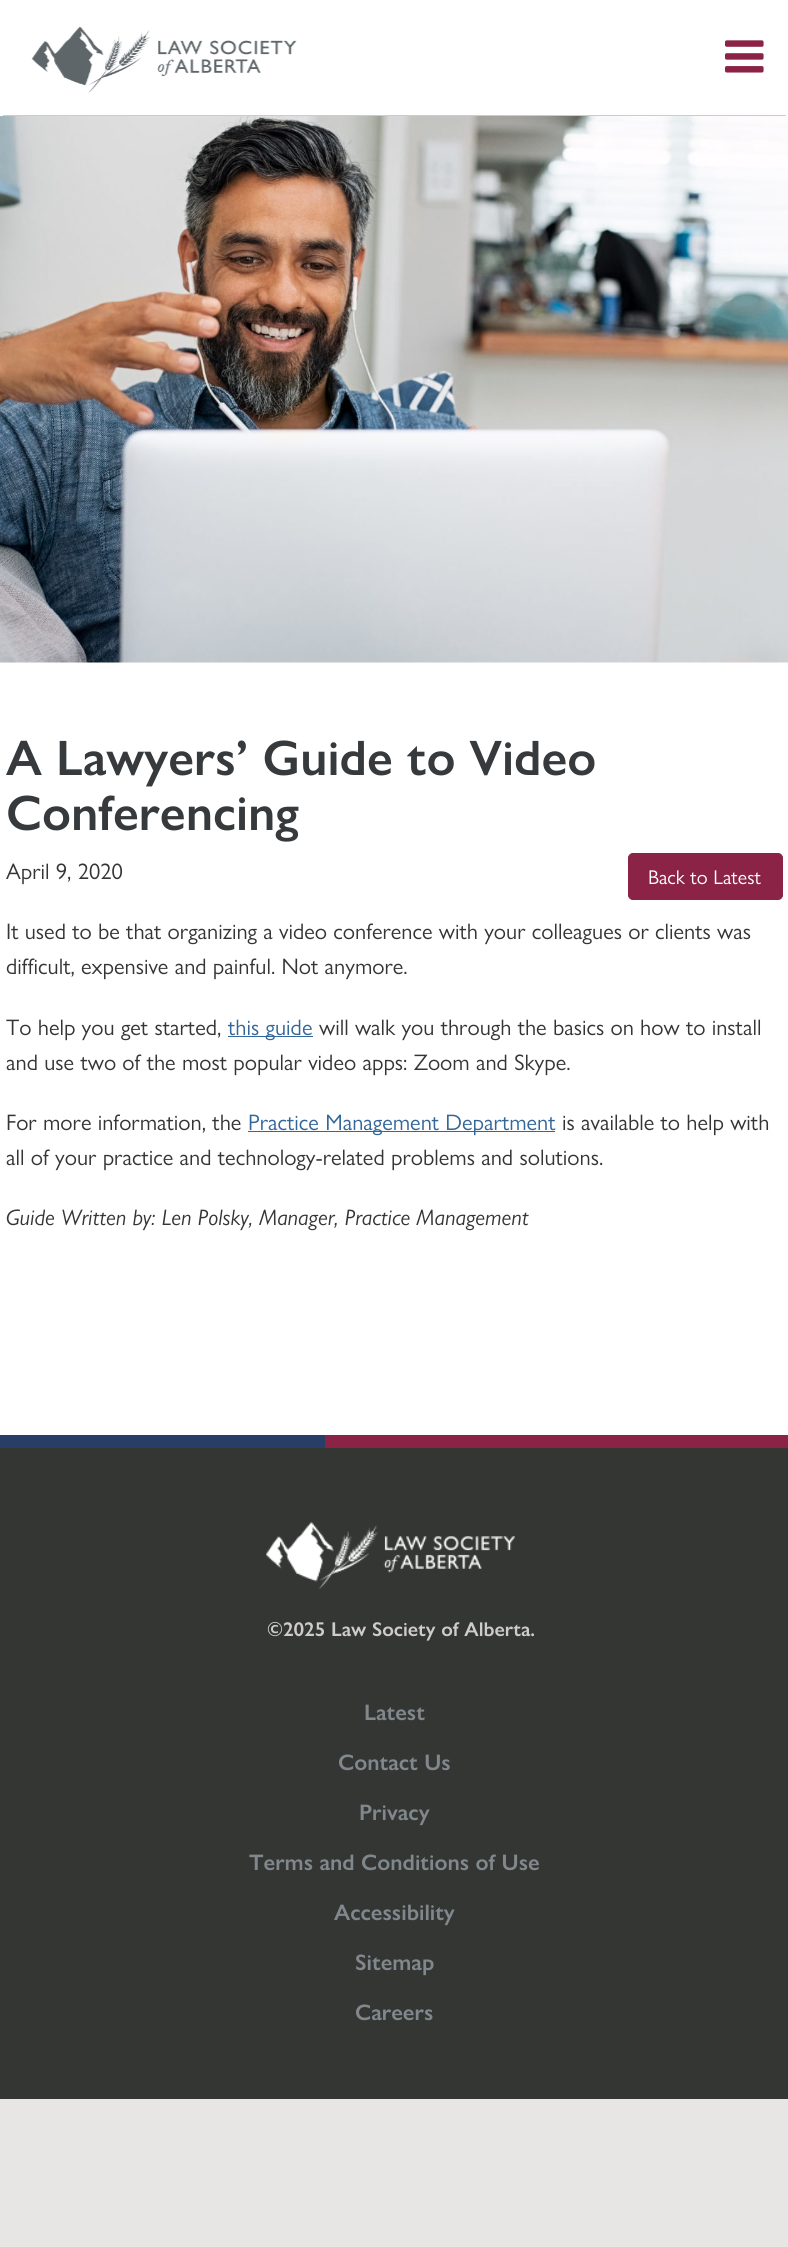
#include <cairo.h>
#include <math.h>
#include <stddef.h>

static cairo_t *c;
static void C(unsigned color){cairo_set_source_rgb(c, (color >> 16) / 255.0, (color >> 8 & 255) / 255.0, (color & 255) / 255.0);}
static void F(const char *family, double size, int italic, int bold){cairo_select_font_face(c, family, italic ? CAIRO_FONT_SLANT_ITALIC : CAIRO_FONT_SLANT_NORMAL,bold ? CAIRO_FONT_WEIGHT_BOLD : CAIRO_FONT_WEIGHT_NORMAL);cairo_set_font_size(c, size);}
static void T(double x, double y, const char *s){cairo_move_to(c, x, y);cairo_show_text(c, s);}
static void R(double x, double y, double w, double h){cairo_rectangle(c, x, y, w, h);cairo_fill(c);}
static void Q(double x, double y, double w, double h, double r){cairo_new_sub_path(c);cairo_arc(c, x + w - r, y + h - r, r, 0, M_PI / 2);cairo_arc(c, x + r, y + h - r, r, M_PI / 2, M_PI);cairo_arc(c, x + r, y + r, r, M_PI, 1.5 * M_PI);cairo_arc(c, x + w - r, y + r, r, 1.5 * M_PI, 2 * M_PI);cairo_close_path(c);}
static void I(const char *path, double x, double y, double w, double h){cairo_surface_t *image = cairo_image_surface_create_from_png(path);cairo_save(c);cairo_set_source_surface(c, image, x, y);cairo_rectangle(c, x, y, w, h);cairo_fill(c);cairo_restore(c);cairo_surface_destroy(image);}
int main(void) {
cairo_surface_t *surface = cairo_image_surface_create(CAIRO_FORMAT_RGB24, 788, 2247);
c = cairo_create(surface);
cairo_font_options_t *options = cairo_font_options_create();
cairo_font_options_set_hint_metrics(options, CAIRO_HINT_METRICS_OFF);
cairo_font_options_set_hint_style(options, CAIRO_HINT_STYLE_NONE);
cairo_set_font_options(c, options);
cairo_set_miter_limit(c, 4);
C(0xe7e6e4);
cairo_paint(c);
C(0xffffff);
R(0,662,788,773);
R(0,0,788,116);
I("1.png",725,40,39,33);
C(0xceccc8);
R(3,115,783,1);
I("2.png",31,27,266,66);
I("3.png",0,116,788,547);
F("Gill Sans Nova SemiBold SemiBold",50,0,0);
C(0x373a3c);
T(6,775,"A Lawyers’ Guide to Video");
T(6,830,"Conferencing");
F("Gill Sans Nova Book",22.5,0,0);
C(0x343634);
T(6,879,"April 9, 2020");
C(0x8b2346);
Q(628.5,853.5,154,46,4.5);
cairo_fill_preserve(c);
cairo_set_line_width(c,1);
cairo_stroke(c);
F("Gill Sans Nova Book",20,0,0);
C(0xffffff);
T(648,884,"Back to Latest");
F("Gill Sans Nova Book",22.5,0,0);
C(0x343634);
T(6,939,"It used to be that organizing a video conference with your colleagues or clients was");
T(6,974,"difficult, expensive and painful. Not anymore.");
T(6,1035,"To help you get started,");
C(0x336699);
R(228,1036,85,1);
T(228,1035,"this guide");
C(0x343634);
T(319,1035,"will walk you through the basics on how to install");
T(6,1070,"and use two of the most popular video apps: Zoom and Skype.");
T(6,1130,"For more information, the");
C(0x336699);
R(248,1131,307,1);
T(248,1130,"Practice Management Department");
C(0x343634);
T(562,1130,"is available to help with");
T(6,1165,"all of your practice and technology-related problems and solutions.");
F("Gill Sans Nova Book",22.5,1,0);
T(6,1225,"Guide Written by: Len Polsky, Manager, Practice Management");
R(0,1448,788,651);
C(0x283e67);
R(0,1435,325,13);
C(0x8b2346);
R(325,1435,463,13);
I("4.png",266,1522,249,67);
F("Gill Sans Nova SemiBold SemiBold",20,0,0);
C(0xceccc8);
T(267,1636,"©2025 Law Society of Alberta.");
F("Gill Sans Nova SemiBold SemiBold",22.5,0,0);
C(0x81888d);
T(364,1720,"Latest");
T(338,1770,"Contact Us");
T(359,1820,"Privacy");
T(249,1870,"Terms and Conditions of Use");
T(334,1920,"Accessibility");
T(355,1970,"Sitemap");
T(355,2020,"Careers");
cairo_surface_write_to_png(surface, "o.png");
cairo_font_options_destroy(options);
cairo_destroy(c);
cairo_surface_destroy(surface);
return 0;
}
